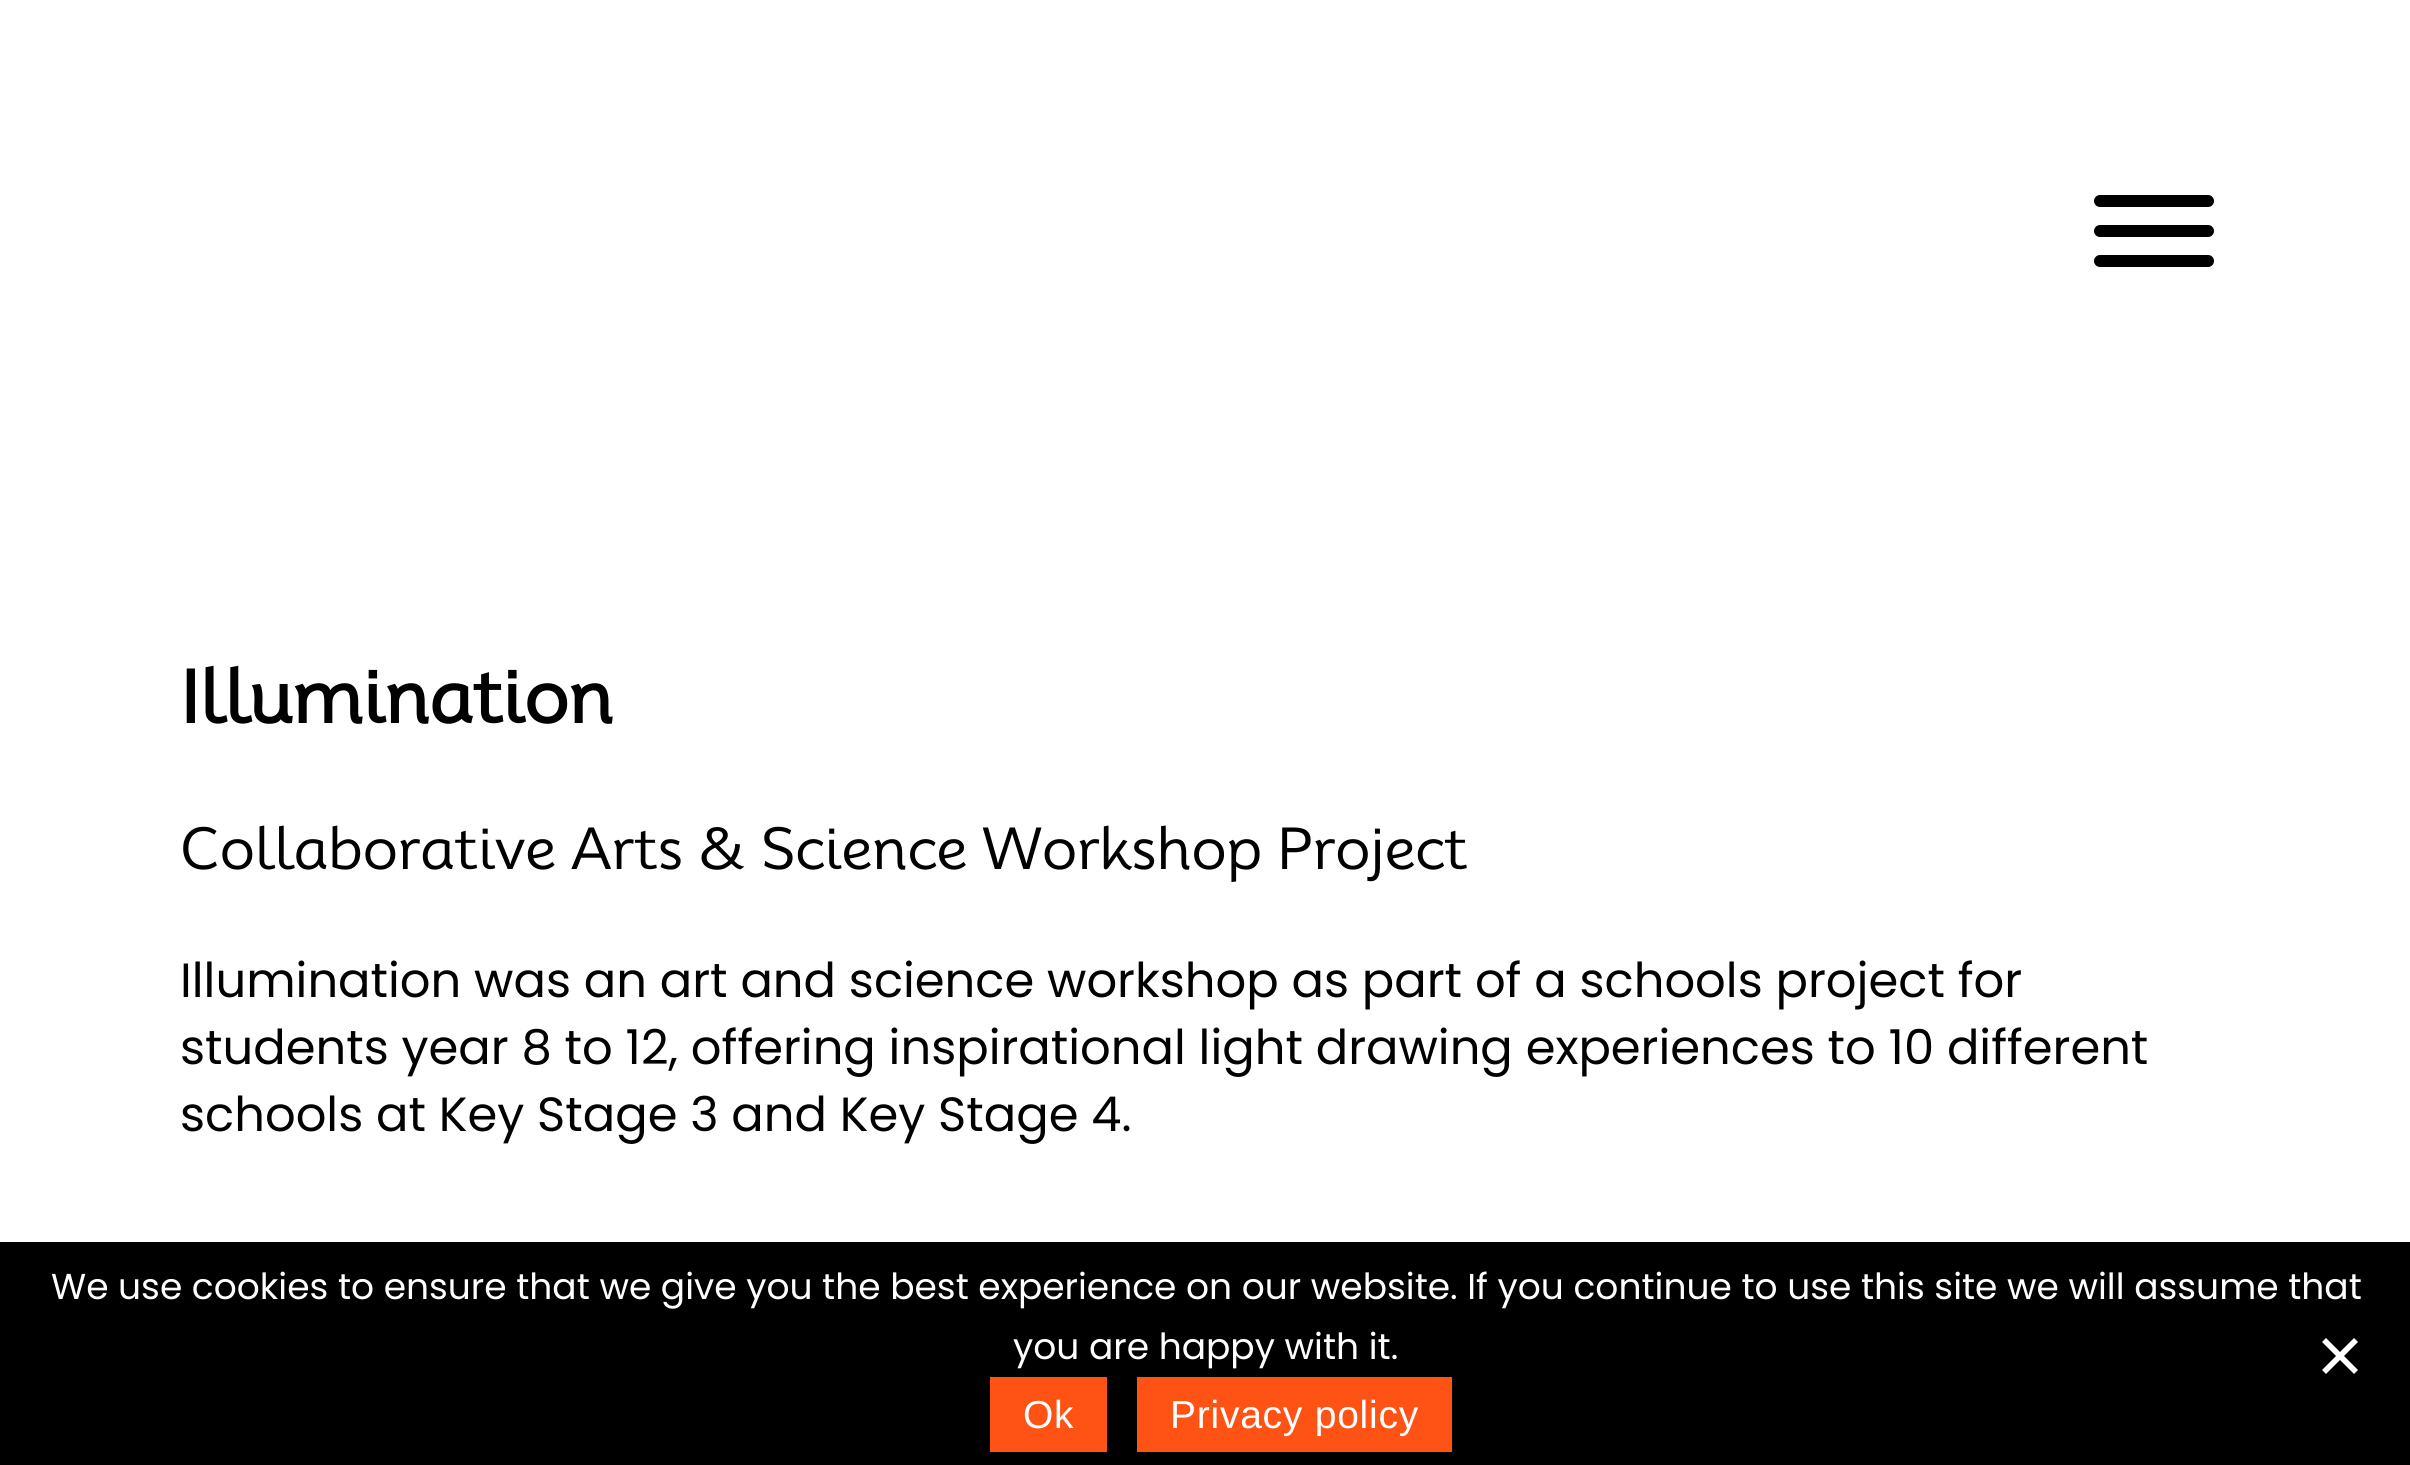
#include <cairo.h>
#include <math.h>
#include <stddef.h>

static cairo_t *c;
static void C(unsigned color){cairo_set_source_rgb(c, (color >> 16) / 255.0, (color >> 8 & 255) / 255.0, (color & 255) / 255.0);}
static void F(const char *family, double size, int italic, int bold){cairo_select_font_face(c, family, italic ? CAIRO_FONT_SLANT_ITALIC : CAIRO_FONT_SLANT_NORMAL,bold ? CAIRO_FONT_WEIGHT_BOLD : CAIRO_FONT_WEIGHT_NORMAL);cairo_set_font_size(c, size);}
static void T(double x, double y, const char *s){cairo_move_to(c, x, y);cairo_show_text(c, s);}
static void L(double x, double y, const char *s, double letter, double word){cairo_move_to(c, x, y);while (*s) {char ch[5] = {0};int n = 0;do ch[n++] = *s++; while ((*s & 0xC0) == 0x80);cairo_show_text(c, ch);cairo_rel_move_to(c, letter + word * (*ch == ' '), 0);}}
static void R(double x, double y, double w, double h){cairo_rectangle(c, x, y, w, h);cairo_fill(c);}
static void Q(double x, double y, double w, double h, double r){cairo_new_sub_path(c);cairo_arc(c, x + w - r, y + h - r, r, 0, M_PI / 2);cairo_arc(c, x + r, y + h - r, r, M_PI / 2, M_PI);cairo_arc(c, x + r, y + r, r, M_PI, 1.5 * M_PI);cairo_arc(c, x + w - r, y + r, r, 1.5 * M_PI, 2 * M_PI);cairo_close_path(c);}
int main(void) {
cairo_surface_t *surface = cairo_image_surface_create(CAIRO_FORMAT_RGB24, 2410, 1465);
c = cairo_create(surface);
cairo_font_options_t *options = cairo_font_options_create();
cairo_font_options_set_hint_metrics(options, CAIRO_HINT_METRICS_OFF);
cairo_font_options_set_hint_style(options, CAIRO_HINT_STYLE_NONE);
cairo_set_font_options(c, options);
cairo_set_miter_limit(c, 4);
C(0xffffff);
cairo_paint(c);
C(0x000000);
Q(2094,225,120,12,6);
cairo_fill(c);
Q(2094,195,120,12,6);
cairo_fill(c);
Q(2094,255,120,12,6);
cairo_fill(c);
F("Mooli",72,0,1);
T(180,723,"Illumination");
F("Mooli",57,0,0);
T(180,869,"Collaborative Arts & Science Workshop Project");
F("Poppins",48,0,0);
T(180,997,"Illumination was an art and science workshop as part of a schools project for");
T(180,1064,"students year 8 to 12, offering inspirational light drawing experiences to 10 different");
T(180,1131,"schools at Key Stage 3 and Key Stage 4.");
R(0,1242,2410,223);
F("Poppins",36,0,0);
C(0xffffff);
T(51,1299,"We use cookies to ensure that we give you the best experience on our website. If you continue to use this site we will assume that");
T(1013,1359,"you are happy with it.");
cairo_new_path(c);
cairo_move_to(c,2354,1338);
cairo_line_to(c,2358,1342);
cairo_line_to(c,2326,1374);
cairo_line_to(c,2322,1370);
cairo_close_path(c);
cairo_fill(c);
cairo_new_path(c);
cairo_move_to(c,2322,1342);
cairo_line_to(c,2326,1338);
cairo_line_to(c,2358,1370);
cairo_line_to(c,2354,1374);
cairo_close_path(c);
cairo_fill(c);
C(0xff5316);
R(990,1377,117,75);
F("Liberation Sans",39,0,0);
C(0xffffff);
L(1023,1428,"Ok",.75,0);
C(0xff5316);
R(1137,1377,315,75);
C(0xffffff);
L(1170,1428,"Privacy policy",.75,0);
cairo_surface_write_to_png(surface, "o.png");
cairo_font_options_destroy(options);
cairo_destroy(c);
cairo_surface_destroy(surface);
return 0;
}
